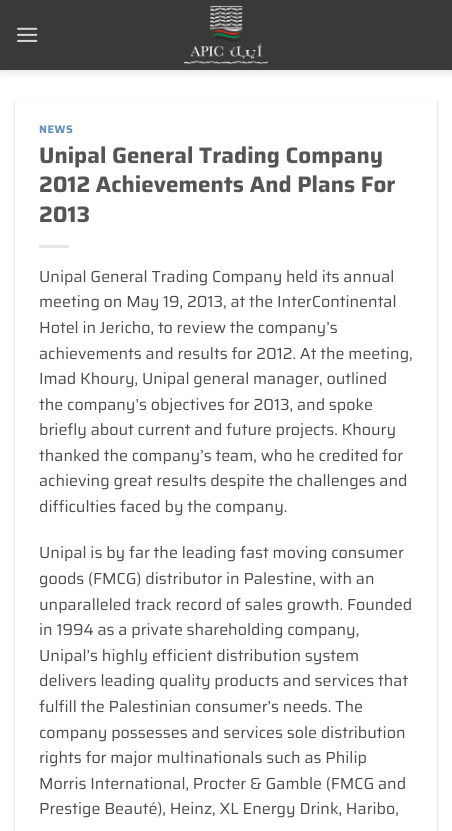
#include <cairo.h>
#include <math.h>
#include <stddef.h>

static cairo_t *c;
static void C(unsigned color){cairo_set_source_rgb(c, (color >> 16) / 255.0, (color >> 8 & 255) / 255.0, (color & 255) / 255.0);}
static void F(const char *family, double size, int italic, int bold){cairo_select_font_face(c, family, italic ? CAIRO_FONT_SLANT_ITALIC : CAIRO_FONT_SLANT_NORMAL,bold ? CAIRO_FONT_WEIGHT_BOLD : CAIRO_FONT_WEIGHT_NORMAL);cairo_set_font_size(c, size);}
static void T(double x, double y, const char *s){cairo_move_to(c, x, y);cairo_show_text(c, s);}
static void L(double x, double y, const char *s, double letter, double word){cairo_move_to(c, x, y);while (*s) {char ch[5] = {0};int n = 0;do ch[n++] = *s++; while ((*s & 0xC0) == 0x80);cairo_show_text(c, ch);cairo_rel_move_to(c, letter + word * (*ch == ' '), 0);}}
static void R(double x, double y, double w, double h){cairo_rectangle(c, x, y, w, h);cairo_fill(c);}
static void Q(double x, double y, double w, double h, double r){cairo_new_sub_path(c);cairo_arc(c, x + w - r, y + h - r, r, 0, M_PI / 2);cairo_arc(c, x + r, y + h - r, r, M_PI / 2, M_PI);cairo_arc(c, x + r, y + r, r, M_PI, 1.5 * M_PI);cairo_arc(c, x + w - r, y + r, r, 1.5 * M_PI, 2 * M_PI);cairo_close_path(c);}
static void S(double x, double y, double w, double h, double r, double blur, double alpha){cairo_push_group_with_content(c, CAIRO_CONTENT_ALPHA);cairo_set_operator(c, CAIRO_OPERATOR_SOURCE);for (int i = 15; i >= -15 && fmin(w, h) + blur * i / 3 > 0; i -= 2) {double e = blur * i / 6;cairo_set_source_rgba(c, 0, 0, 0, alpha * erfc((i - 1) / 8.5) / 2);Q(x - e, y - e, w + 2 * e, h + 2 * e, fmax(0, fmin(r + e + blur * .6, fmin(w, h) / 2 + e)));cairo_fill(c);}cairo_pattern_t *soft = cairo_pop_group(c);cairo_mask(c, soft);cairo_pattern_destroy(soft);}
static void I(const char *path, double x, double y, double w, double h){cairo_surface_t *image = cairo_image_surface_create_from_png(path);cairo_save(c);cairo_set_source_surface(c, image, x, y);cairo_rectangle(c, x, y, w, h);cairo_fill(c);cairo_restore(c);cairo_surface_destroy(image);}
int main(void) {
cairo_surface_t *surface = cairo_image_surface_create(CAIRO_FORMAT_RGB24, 452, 831);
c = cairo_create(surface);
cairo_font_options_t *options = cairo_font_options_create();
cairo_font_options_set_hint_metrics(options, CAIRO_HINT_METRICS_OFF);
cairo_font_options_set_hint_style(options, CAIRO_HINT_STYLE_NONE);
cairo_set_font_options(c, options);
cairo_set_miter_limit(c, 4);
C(0xffffff);
cairo_paint(c);
C(0x000000);
S(1,1,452,70,0,5,.15);
C(0x393939);
R(0,0,452,70);
I("1.png",17,27,21,15);
I("2.png",184,5,84,60);
cairo_save(c);
cairo_set_fill_rule(c,CAIRO_FILL_RULE_EVEN_ODD);
cairo_new_path(c);
cairo_move_to(c,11,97);
cairo_line_to(c,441,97);
cairo_line_to(c,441,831);
cairo_line_to(c,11,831);
cairo_close_path(c);
cairo_move_to(c,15,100);
cairo_line_to(c,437,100);
cairo_line_to(c,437,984);
cairo_line_to(c,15,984);
cairo_close_path(c);
cairo_clip(c);
C(0x000000);
S(15,101,422,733,0,1,.24);
cairo_restore(c);
F("Saira",11,0,1);
C(0x6691bb);
L(39,133,"NEWS",.5,0);
F("Saira",22.4,0,1);
C(0x555555);
T(39,163,"Unipal General Trading Company");
T(39,192,"2012 Achievements And Plans For");
T(39,222,"2013");
C(0xe6e6e6);
R(39,245,30,3);
F("Saira",16,0,0);
C(0x4c4c4c);
T(39,282,"Unipal General Trading Company held its annual");
T(39,307,"meeting on May 19, 2013, at the InterContinental");
T(39,333,"Hotel in Jericho, to review the company’s");
T(39,359,"achievements and results for 2012. At the meeting,");
T(39,384,"Imad Khoury, Unipal general manager, outlined");
T(39,410,"the company’s objectives for 2013, and spoke");
T(39,435,"briefly about current and future projects. Khoury");
T(39,461,"thanked the company’s team, who he credited for");
T(39,486,"achieving great results despite the challenges and");
T(39,512,"difficulties faced by the company.");
T(39,558,"Unipal is by far the leading fast moving consumer");
T(39,584,"goods (FMCG) distributor in Palestine, with an");
T(39,610,"unparalleled track record of sales growth. Founded");
T(39,635,"in 1994 as a private shareholding company,");
T(39,661,"Unipal’s highly efficient distribution system");
T(39,686,"delivers leading quality products and services that");
T(39,712,"fulfill the Palestinian consumer’s needs. The");
T(39,738,"company possesses and services sole distribution");
T(39,763,"rights for major multinationals such as Philip");
T(39,789,"Morris International, Procter & Gamble (FMCG and");
T(39,814,"Prestige Beauté), Heinz, XL Energy Drink, Haribo,");
cairo_surface_write_to_png(surface, "o.png");
cairo_font_options_destroy(options);
cairo_destroy(c);
cairo_surface_destroy(surface);
return 0;
}
